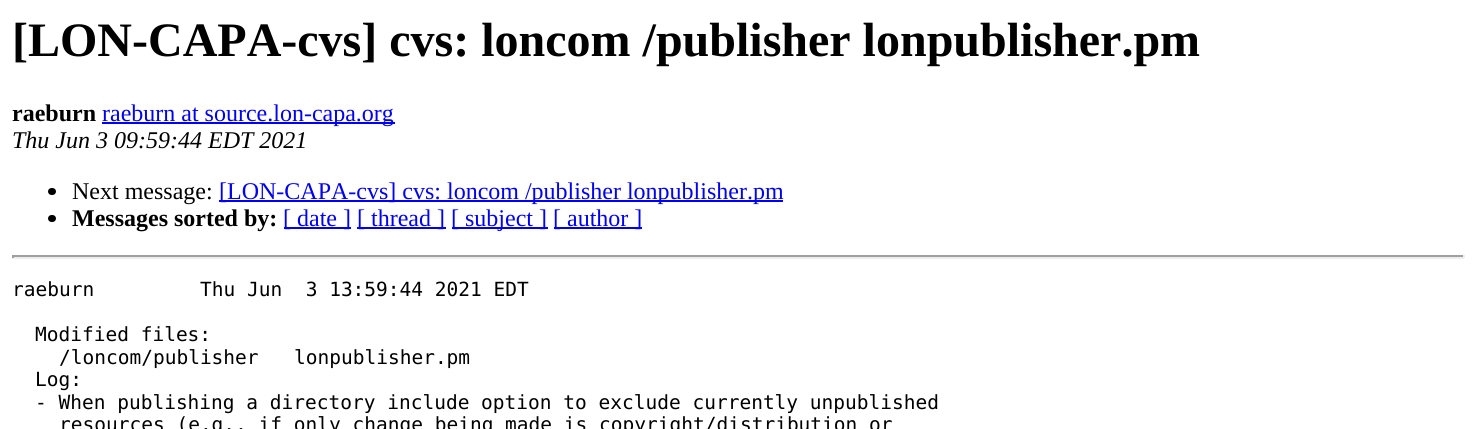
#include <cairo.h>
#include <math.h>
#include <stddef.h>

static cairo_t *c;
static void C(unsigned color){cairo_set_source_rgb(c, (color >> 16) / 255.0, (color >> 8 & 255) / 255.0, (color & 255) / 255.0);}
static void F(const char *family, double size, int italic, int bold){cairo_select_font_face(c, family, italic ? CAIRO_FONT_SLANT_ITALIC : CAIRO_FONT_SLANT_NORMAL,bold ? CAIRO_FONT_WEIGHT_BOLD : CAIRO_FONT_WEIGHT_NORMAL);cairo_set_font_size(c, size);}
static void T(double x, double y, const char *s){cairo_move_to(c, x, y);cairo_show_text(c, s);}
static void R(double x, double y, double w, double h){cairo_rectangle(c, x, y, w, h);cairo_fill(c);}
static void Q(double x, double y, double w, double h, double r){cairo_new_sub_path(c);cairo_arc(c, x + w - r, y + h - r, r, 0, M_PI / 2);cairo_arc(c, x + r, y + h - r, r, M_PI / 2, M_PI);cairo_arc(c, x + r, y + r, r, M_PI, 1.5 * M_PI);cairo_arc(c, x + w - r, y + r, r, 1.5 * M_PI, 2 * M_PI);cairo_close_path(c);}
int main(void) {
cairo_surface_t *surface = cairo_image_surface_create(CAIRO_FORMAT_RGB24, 1475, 429);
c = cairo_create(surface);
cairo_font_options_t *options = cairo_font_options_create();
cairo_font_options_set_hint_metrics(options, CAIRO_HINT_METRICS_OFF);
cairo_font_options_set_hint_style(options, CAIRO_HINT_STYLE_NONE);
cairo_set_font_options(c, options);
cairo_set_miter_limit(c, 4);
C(0xffffff);
cairo_paint(c);
F("Liberation Serif",48,0,1);
C(0x000000);
T(12,56,"[LON-CAPA-cvs] cvs: loncom /publisher lonpublisher.pm");
F("Liberation Serif",24,0,1);
T(12,121,"raeburn");
C(0x0000ee);
R(102,122,293,2);
F("Liberation Serif",24,0,0);
T(102,121,"raeburn at source.lon-capa.org");
F("Liberation Serif",24,1,0);
C(0x000000);
T(12,148,"Thu Jun 3 09:59:44 EDT 2021");
Q(48,188,8,7,3.5);
cairo_fill(c);
F("Liberation Serif",24,0,0);
T(72,199,"Next message:");
C(0x0000ee);
R(219,200,564,2);
T(219,199,"[LON-CAPA-cvs] cvs: loncom /publisher lonpublisher.pm");
C(0x000000);
Q(48,215,8,7,3.5);
cairo_fill(c);
F("Liberation Serif",24,0,1);
T(72,226,"Messages sorted by:");
C(0x0000ee);
R(284,227,67,2);
F("Liberation Serif",24,0,0);
T(283,226,"[ date ]");
R(357,227,89,2);
T(357,226,"[ thread ]");
R(452,227,96,2);
T(451,226,"[ subject ]");
R(554,227,88,2);
T(553,226,"[ author ]");
C(0x9f9f9f);
R(12,255,1452,2);
C(0xeeeeee);
R(1463,255,2,3);
R(12,257,1452,2);
C(0x9f9f9f);
R(12,255,2,3);
F("DejaVu Sans Mono",19.5,0,0);
C(0x000000);
T(12,296,"raeburn");
T(200,296,"Thu Jun  3 13:59:44 2021 EDT");
T(35,341,"Modified files:");
T(59,364,"/loncom/publisher");
T(294,364,"lonpublisher.pm");
T(35,386,"Log:");
T(35,409,"- When publishing a directory include option to exclude currently unpublished");
T(59,431,"resources (e.g., if only change being made is copyright/distribution or");
cairo_surface_write_to_png(surface, "o.png");
cairo_font_options_destroy(options);
cairo_destroy(c);
cairo_surface_destroy(surface);
return 0;
}
